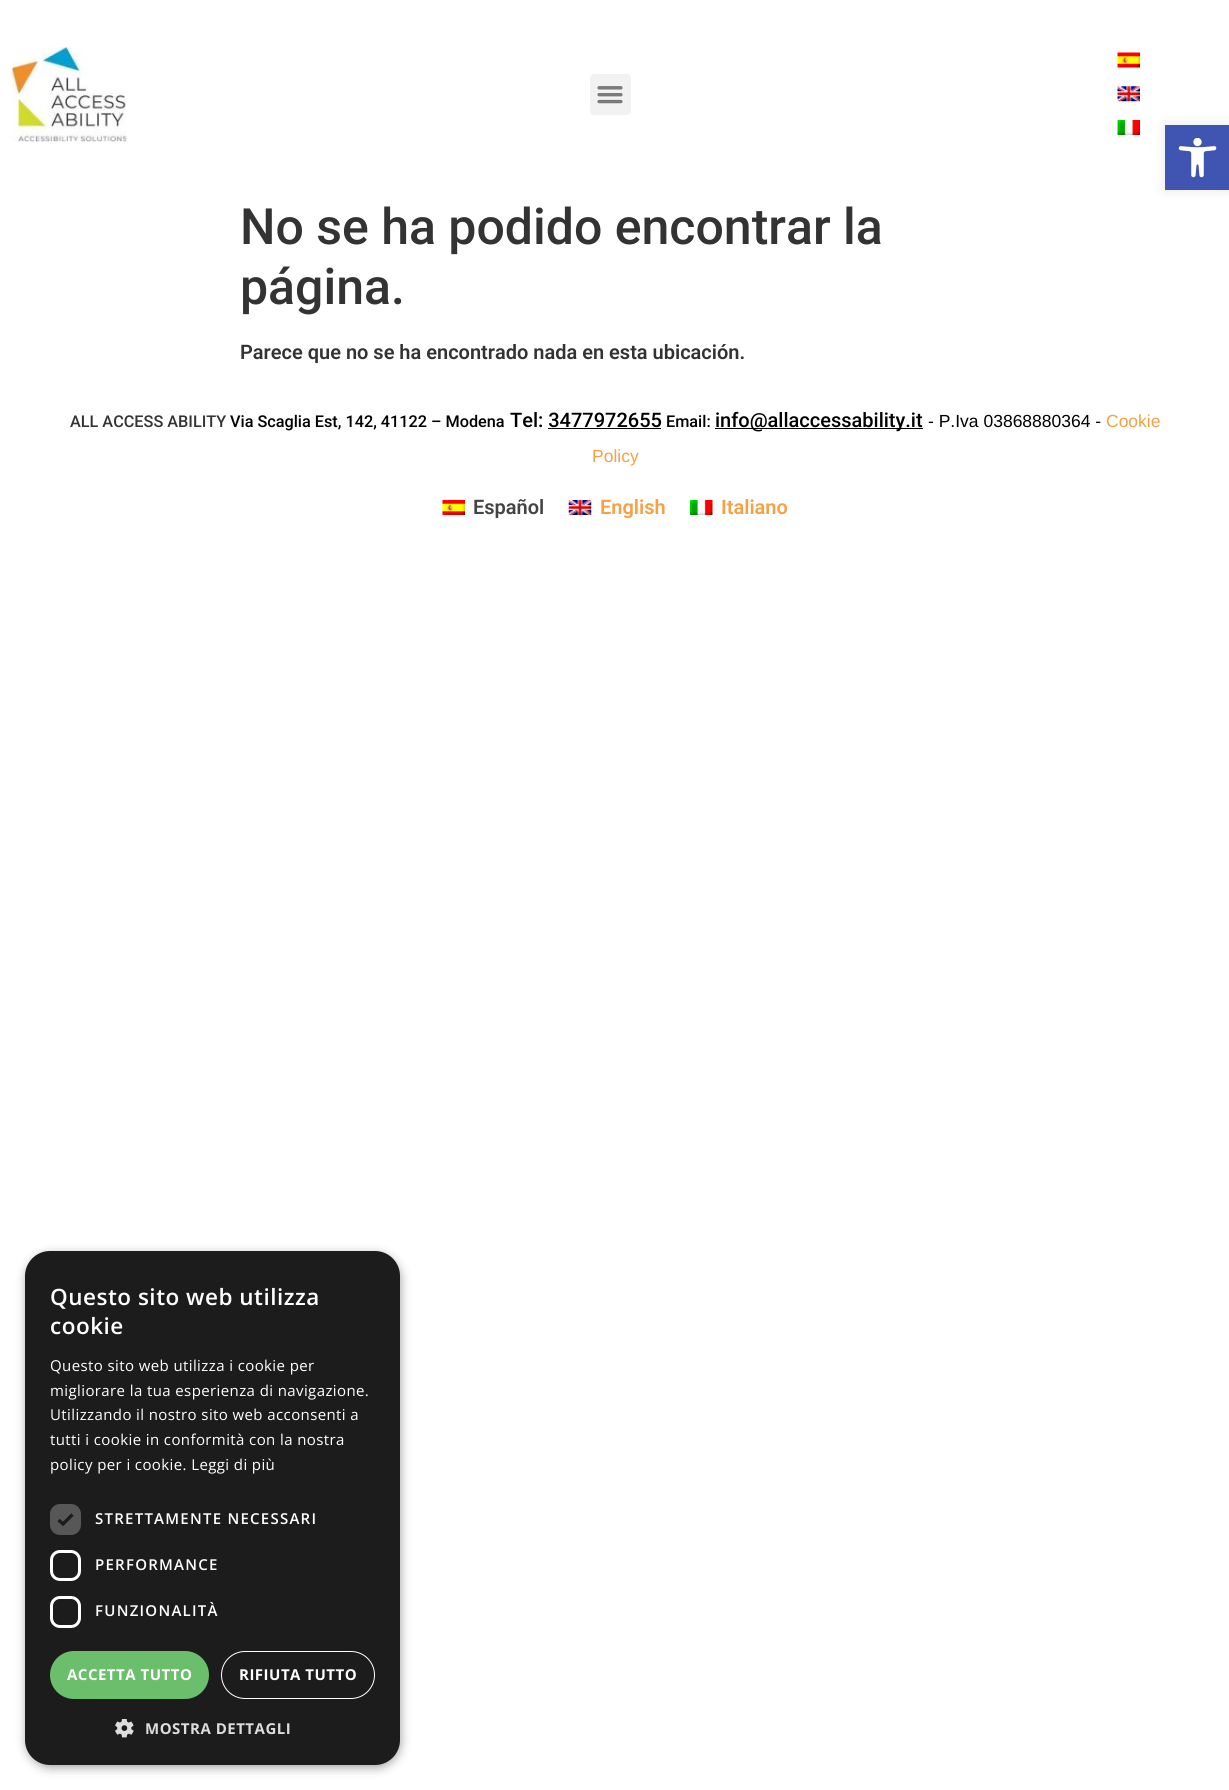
#include <cairo.h>
#include <math.h>
#include <stddef.h>

static cairo_t *c;
static void C(unsigned color){cairo_set_source_rgb(c, (color >> 16) / 255.0, (color >> 8 & 255) / 255.0, (color & 255) / 255.0);}
static void F(const char *family, double size, int italic, int bold){cairo_select_font_face(c, family, italic ? CAIRO_FONT_SLANT_ITALIC : CAIRO_FONT_SLANT_NORMAL,bold ? CAIRO_FONT_WEIGHT_BOLD : CAIRO_FONT_WEIGHT_NORMAL);cairo_set_font_size(c, size);}
static void T(double x, double y, const char *s){cairo_move_to(c, x, y);cairo_show_text(c, s);}
static void L(double x, double y, const char *s, double letter, double word){cairo_move_to(c, x, y);while (*s) {char ch[5] = {0};int n = 0;do ch[n++] = *s++; while ((*s & 0xC0) == 0x80);cairo_show_text(c, ch);cairo_rel_move_to(c, letter + word * (*ch == ' '), 0);}}
static void R(double x, double y, double w, double h){cairo_rectangle(c, x, y, w, h);cairo_fill(c);}
static void Q(double x, double y, double w, double h, double r){cairo_new_sub_path(c);cairo_arc(c, x + w - r, y + h - r, r, 0, M_PI / 2);cairo_arc(c, x + r, y + h - r, r, M_PI / 2, M_PI);cairo_arc(c, x + r, y + r, r, M_PI, 1.5 * M_PI);cairo_arc(c, x + w - r, y + r, r, 1.5 * M_PI, 2 * M_PI);cairo_close_path(c);}
static void S(double x, double y, double w, double h, double r, double blur, double alpha){cairo_push_group_with_content(c, CAIRO_CONTENT_ALPHA);cairo_set_operator(c, CAIRO_OPERATOR_SOURCE);for (int i = 15; i >= -15 && fmin(w, h) + blur * i / 3 > 0; i -= 2) {double e = blur * i / 6;cairo_set_source_rgba(c, 0, 0, 0, alpha * erfc((i - 1) / 8.5) / 2);Q(x - e, y - e, w + 2 * e, h + 2 * e, fmax(0, fmin(r + e + blur * .6, fmin(w, h) / 2 + e)));cairo_fill(c);}cairo_pattern_t *soft = cairo_pop_group(c);cairo_mask(c, soft);cairo_pattern_destroy(soft);}
static void I(const char *path, double x, double y, double w, double h){cairo_surface_t *image = cairo_image_surface_create_from_png(path);cairo_save(c);cairo_set_source_surface(c, image, x, y);cairo_rectangle(c, x, y, w, h);cairo_fill(c);cairo_restore(c);cairo_surface_destroy(image);}
int main(void) {
cairo_surface_t *surface = cairo_image_surface_create(CAIRO_FORMAT_RGB24, 1229, 1790);
c = cairo_create(surface);
cairo_font_options_t *options = cairo_font_options_create();
cairo_font_options_set_hint_metrics(options, CAIRO_HINT_METRICS_OFF);
cairo_font_options_set_hint_style(options, CAIRO_HINT_STYLE_NONE);
cairo_set_font_options(c, options);
cairo_set_miter_limit(c, 4);
C(0xffffff);
cairo_paint(c);
I("1.png",12,47,115,95);
C(0xf2f2f2);
Q(590,74,41,41,4);
cairo_fill(c);
I("2.png",597,86,26,18);
I("3.png",1117,52,23,16);
I("4.png",1117,86,23,16);
I("5.png",1117,120,23,15);
C(0x000000);
S(1165,125,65,65,0,6,.1);
C(0x4054b2);
R(1165,125,64,65);
I("6.png",1178,138,39,40);
F("Roboto Medium",50,0,0);
C(0x333333);
T(240,244,"No se ha podido encontrar la");
T(240,304,"página.");
F("Roboto SemiBold",20,0,0);
T(240,359,"Parece que no se ha encontrado nada en esta ubicación.");
F("Roboto Medium",16.25,0,0);
T(70,427,"ALL ACCESS ABILITY");
C(0x000000);
T(230,427,"Via Scaglia Est, 142, 41122 – Modena");
F("Roboto Medium",20,0,0);
T(510,427,"Tel: 3477972655");
F("Roboto Medium",16.25,0,0);
T(666,427,"Email:");
R(715,428,208,1);
F("Roboto Medium",20,0,0);
T(715,427,"info@allaccessability.it");
F("Liberation Sans",17.5,0,0);
T(928,427,"- P.Iva 03868880364 -");
C(0xf7a045);
T(1106,427,"Cookie");
C(0x000000);
R(548,428,113,1);
C(0xf7a045);
T(592,462,"Policy");
I("7.png",442,500,23,15);
F("Roboto SemiBold",20,0,0);
C(0x444444);
T(473,514,"Español");
I("8.png",568,500,24,15);
C(0xf7a045);
T(600,514,"English");
I("9.png",690,500,23,15);
T(721,514,"Italiano");
C(0x000000);
S(26,1254,375,514,25,5,.35);
C(0x1c1c1c);
Q(25,1251,375,514,25);
cairo_fill(c);
F("Open Sans SemiBold",22.5,0,0);
C(0xffffff);
L(50,1305,"Questo sito web utilizza",.5,0);
L(50,1334,"cookie",.5,0);
F("Open Sans",15,0,0);
L(50,1371,"Questo sito web utilizza i cookie per",.4,0);
L(50,1396,"migliorare la tua esperienza di navigazione.",.4,0);
L(50,1420,"Utilizzando il nostro sito web acconsenti a",.4,0);
L(50,1445,"tutti i cookie in conformità con la nostra",.4,0);
L(50,1470,"policy per i cookie. Leggi di più",.4,0);
C(0x575757);
Q(50,1504,31,31,10);
cairo_fill(c);
cairo_new_path(c);
cairo_move_to(c,58.5,1520);
cairo_line_to(c,63,1524);
cairo_line_to(c,72.5,1514.5);
C(0x1c1c1c);
cairo_set_line_width(c,3.3);
cairo_stroke(c);
F("Open Sans SemiBold",15,0,0);
C(0xffffff);
L(95,1524,"STRETTAMENTE NECESSARI",1.25,0);
Q(51.5,1551.5,28,28,8.5);
cairo_set_line_width(c,3);
cairo_stroke(c);
L(95,1570,"PERFORMANCE",1.25,0);
Q(51.5,1597.5,28,29,8.5);
cairo_stroke(c);
L(95,1616,"FUNZIONALITÀ",1.25,0);
C(0x6bbe6b);
Q(50,1651,159,48,24);
cairo_fill(c);
F("Open Sans",15,0,1);
C(0xffffff);
L(67,1680,"ACCETTA TUTTO",.5,0);
Q(221.5,1651.5,153,47,23.5);
cairo_set_line_width(c,1);
cairo_stroke(c);
L(239,1680,"RIFIUTA TUTTO",.5,0);
I("10.png",115,1719,19,19);
C(0xdddddd);
L(145,1734,"MOSTRA DETTAGLI",.5,0);
cairo_surface_write_to_png(surface, "o.png");
cairo_font_options_destroy(options);
cairo_destroy(c);
cairo_surface_destroy(surface);
return 0;
}
